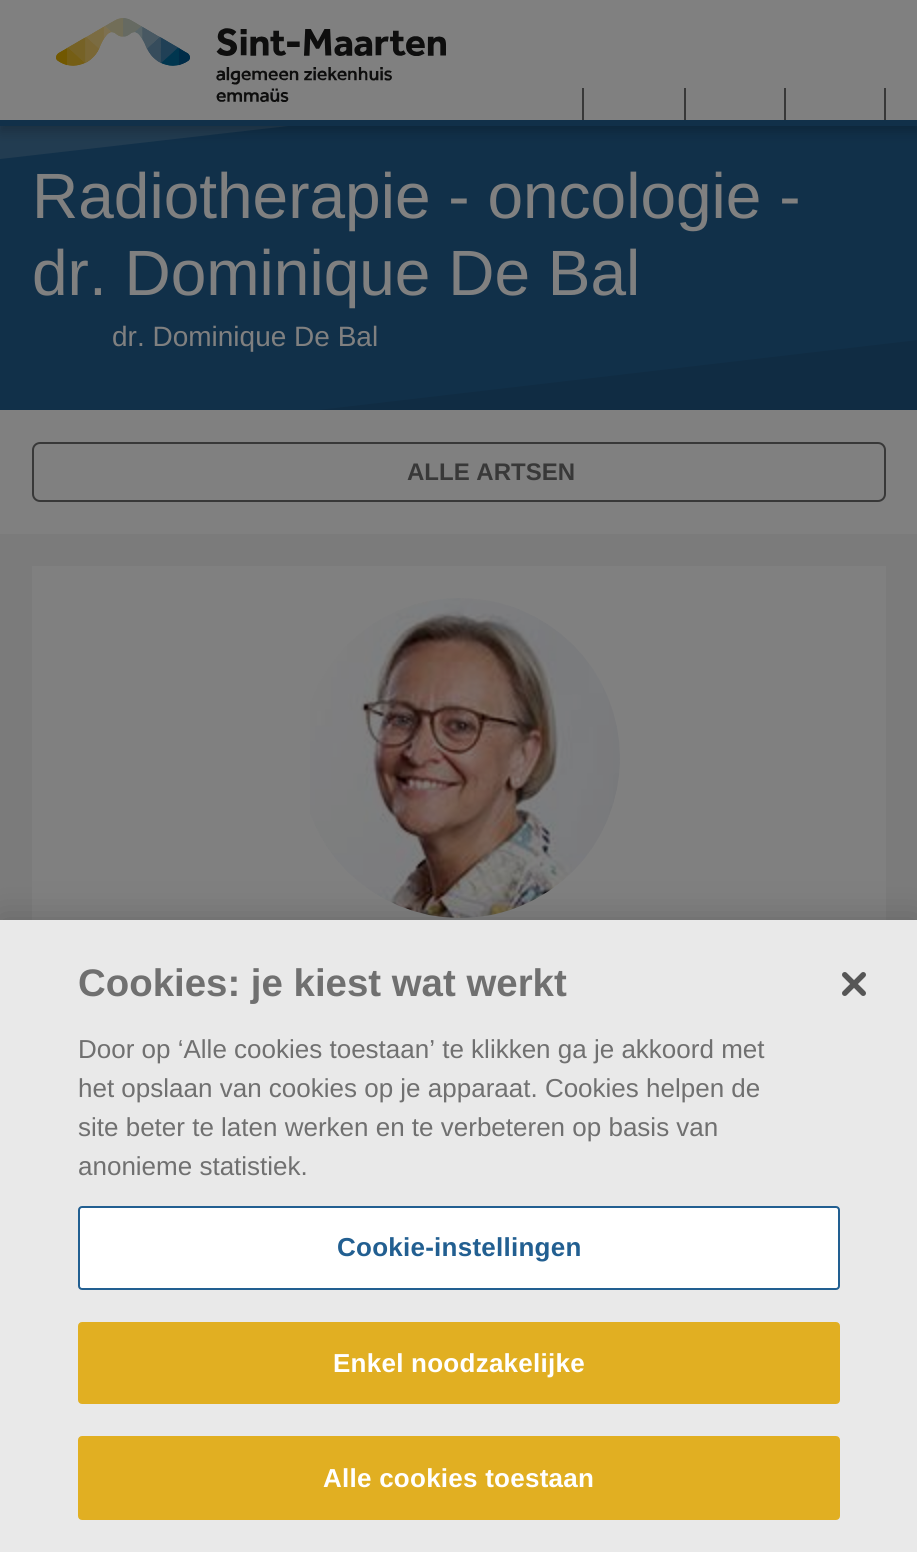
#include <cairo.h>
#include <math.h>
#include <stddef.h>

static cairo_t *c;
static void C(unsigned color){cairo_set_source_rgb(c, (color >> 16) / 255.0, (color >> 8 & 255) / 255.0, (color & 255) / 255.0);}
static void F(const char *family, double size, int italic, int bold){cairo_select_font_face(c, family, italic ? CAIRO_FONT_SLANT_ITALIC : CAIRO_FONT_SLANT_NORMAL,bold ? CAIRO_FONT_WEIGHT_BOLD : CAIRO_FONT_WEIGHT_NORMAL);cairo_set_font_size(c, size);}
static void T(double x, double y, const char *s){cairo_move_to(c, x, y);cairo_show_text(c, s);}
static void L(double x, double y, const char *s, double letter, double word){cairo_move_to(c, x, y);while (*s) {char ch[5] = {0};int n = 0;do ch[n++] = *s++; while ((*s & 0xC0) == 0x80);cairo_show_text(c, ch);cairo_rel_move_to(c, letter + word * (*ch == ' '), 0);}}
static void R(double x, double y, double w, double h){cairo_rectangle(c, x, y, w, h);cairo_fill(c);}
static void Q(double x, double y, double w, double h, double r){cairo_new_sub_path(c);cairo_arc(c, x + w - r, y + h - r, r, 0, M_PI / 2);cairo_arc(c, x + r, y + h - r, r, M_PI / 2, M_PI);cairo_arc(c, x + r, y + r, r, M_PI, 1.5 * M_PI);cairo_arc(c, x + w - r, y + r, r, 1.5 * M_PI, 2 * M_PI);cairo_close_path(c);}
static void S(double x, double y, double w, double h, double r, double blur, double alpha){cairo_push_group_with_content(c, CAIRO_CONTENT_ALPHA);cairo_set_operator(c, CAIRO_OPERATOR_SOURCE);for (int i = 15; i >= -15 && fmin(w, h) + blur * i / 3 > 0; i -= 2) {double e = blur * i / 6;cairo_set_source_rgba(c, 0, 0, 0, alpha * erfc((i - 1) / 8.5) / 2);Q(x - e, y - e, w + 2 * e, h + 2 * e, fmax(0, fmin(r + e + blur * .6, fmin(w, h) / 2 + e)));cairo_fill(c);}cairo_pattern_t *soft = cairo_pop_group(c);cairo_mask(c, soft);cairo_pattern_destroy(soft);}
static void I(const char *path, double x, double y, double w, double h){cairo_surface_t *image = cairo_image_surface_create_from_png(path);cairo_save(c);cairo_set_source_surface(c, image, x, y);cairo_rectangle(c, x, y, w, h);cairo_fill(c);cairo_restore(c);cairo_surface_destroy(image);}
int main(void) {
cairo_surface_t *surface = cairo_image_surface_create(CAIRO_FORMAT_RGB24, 917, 1552);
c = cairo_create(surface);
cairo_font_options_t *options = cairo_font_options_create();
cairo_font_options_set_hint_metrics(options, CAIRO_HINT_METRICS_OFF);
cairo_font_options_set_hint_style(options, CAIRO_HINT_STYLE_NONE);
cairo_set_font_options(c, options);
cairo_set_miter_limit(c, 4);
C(0x7b7b7b);
cairo_paint(c);
C(0x113049);
R(0,126,917,284);
C(0x223c51);
cairo_new_path(c);
cairo_move_to(c,0,126);
cairo_line_to(c,288,126);
cairo_line_to(c,0,159);
cairo_fill(c);
C(0x000000);
S(0,6,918,126,0,6,.2);
C(0x113049);
R(0,120,917,6);
C(0x808080);
R(0,0,917,120);
I("1.png",56,18,390,84);
C(0x383838);
R(582,88,2,32);
R(684,88,2,32);
R(784,88,2,32);
R(884,88,2,32);
F("Liberation Sans",64,0,0);
C(0x808080);
T(32,218,"Radiotherapie - oncologie -");
T(32,295,"dr. Dominique De Bal");
C(0x102c43);
cairo_new_path(c);
cairo_move_to(c,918,410);
cairo_line_to(c,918,340);
cairo_line_to(c,318,410);
cairo_fill(c);
F("Liberation Sans",28,0,0);
C(0x808080);
T(112,346,"dr. Dominique De Bal");
R(0,410,917,124);
Q(33,443,852,58,7);
C(0x383838);
cairo_stroke(c);
F("Liberation Sans",24,0,1);
T(407,480,"ALLE ARTSEN");
C(0x808080);
R(32,566,854,354);
I("2.png",310,598,310,320);
C(0x000000);
S(0,920,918,632,0,18,.2);
C(0xe9e9e9);
R(0,920,917,632);
F("Liberation Sans",38.4,0,1);
C(0x707070);
T(78,996,"Cookies: je kiest wat werkt");
F("Liberation Sans",26,0,0);
T(78,1058,"Door op ‘Alle cookies toestaan’ te klikken ga je akkoord met");
T(78,1097,"het opslaan van cookies op je apparaat. Cookies helpen de");
T(78,1136,"site beter te laten werken en te verbeteren op basis van");
T(78,1175,"anonieme statistiek.");
C(0xffffff);
Q(79,1207,760,82,3);
cairo_fill_preserve(c);
C(0x225f91);
cairo_stroke(c);
F("Liberation Sans",26,0,1);
L(337,1256,"Cookie-instellingen",.25,0);
C(0xe1af22);
Q(79,1323,760,80,3);
cairo_fill_preserve(c);
cairo_stroke(c);
C(0xffffff);
L(333,1372,"Enkel noodzakelijke",.25,0);
C(0xe1af22);
Q(79,1437,760,82,3);
cairo_fill_preserve(c);
cairo_stroke(c);
C(0xffffff);
L(323,1487,"Alle cookies toestaan",.25,0);
I("3.png",842,972,24,24);
cairo_surface_write_to_png(surface, "o.png");
cairo_font_options_destroy(options);
cairo_destroy(c);
cairo_surface_destroy(surface);
return 0;
}
